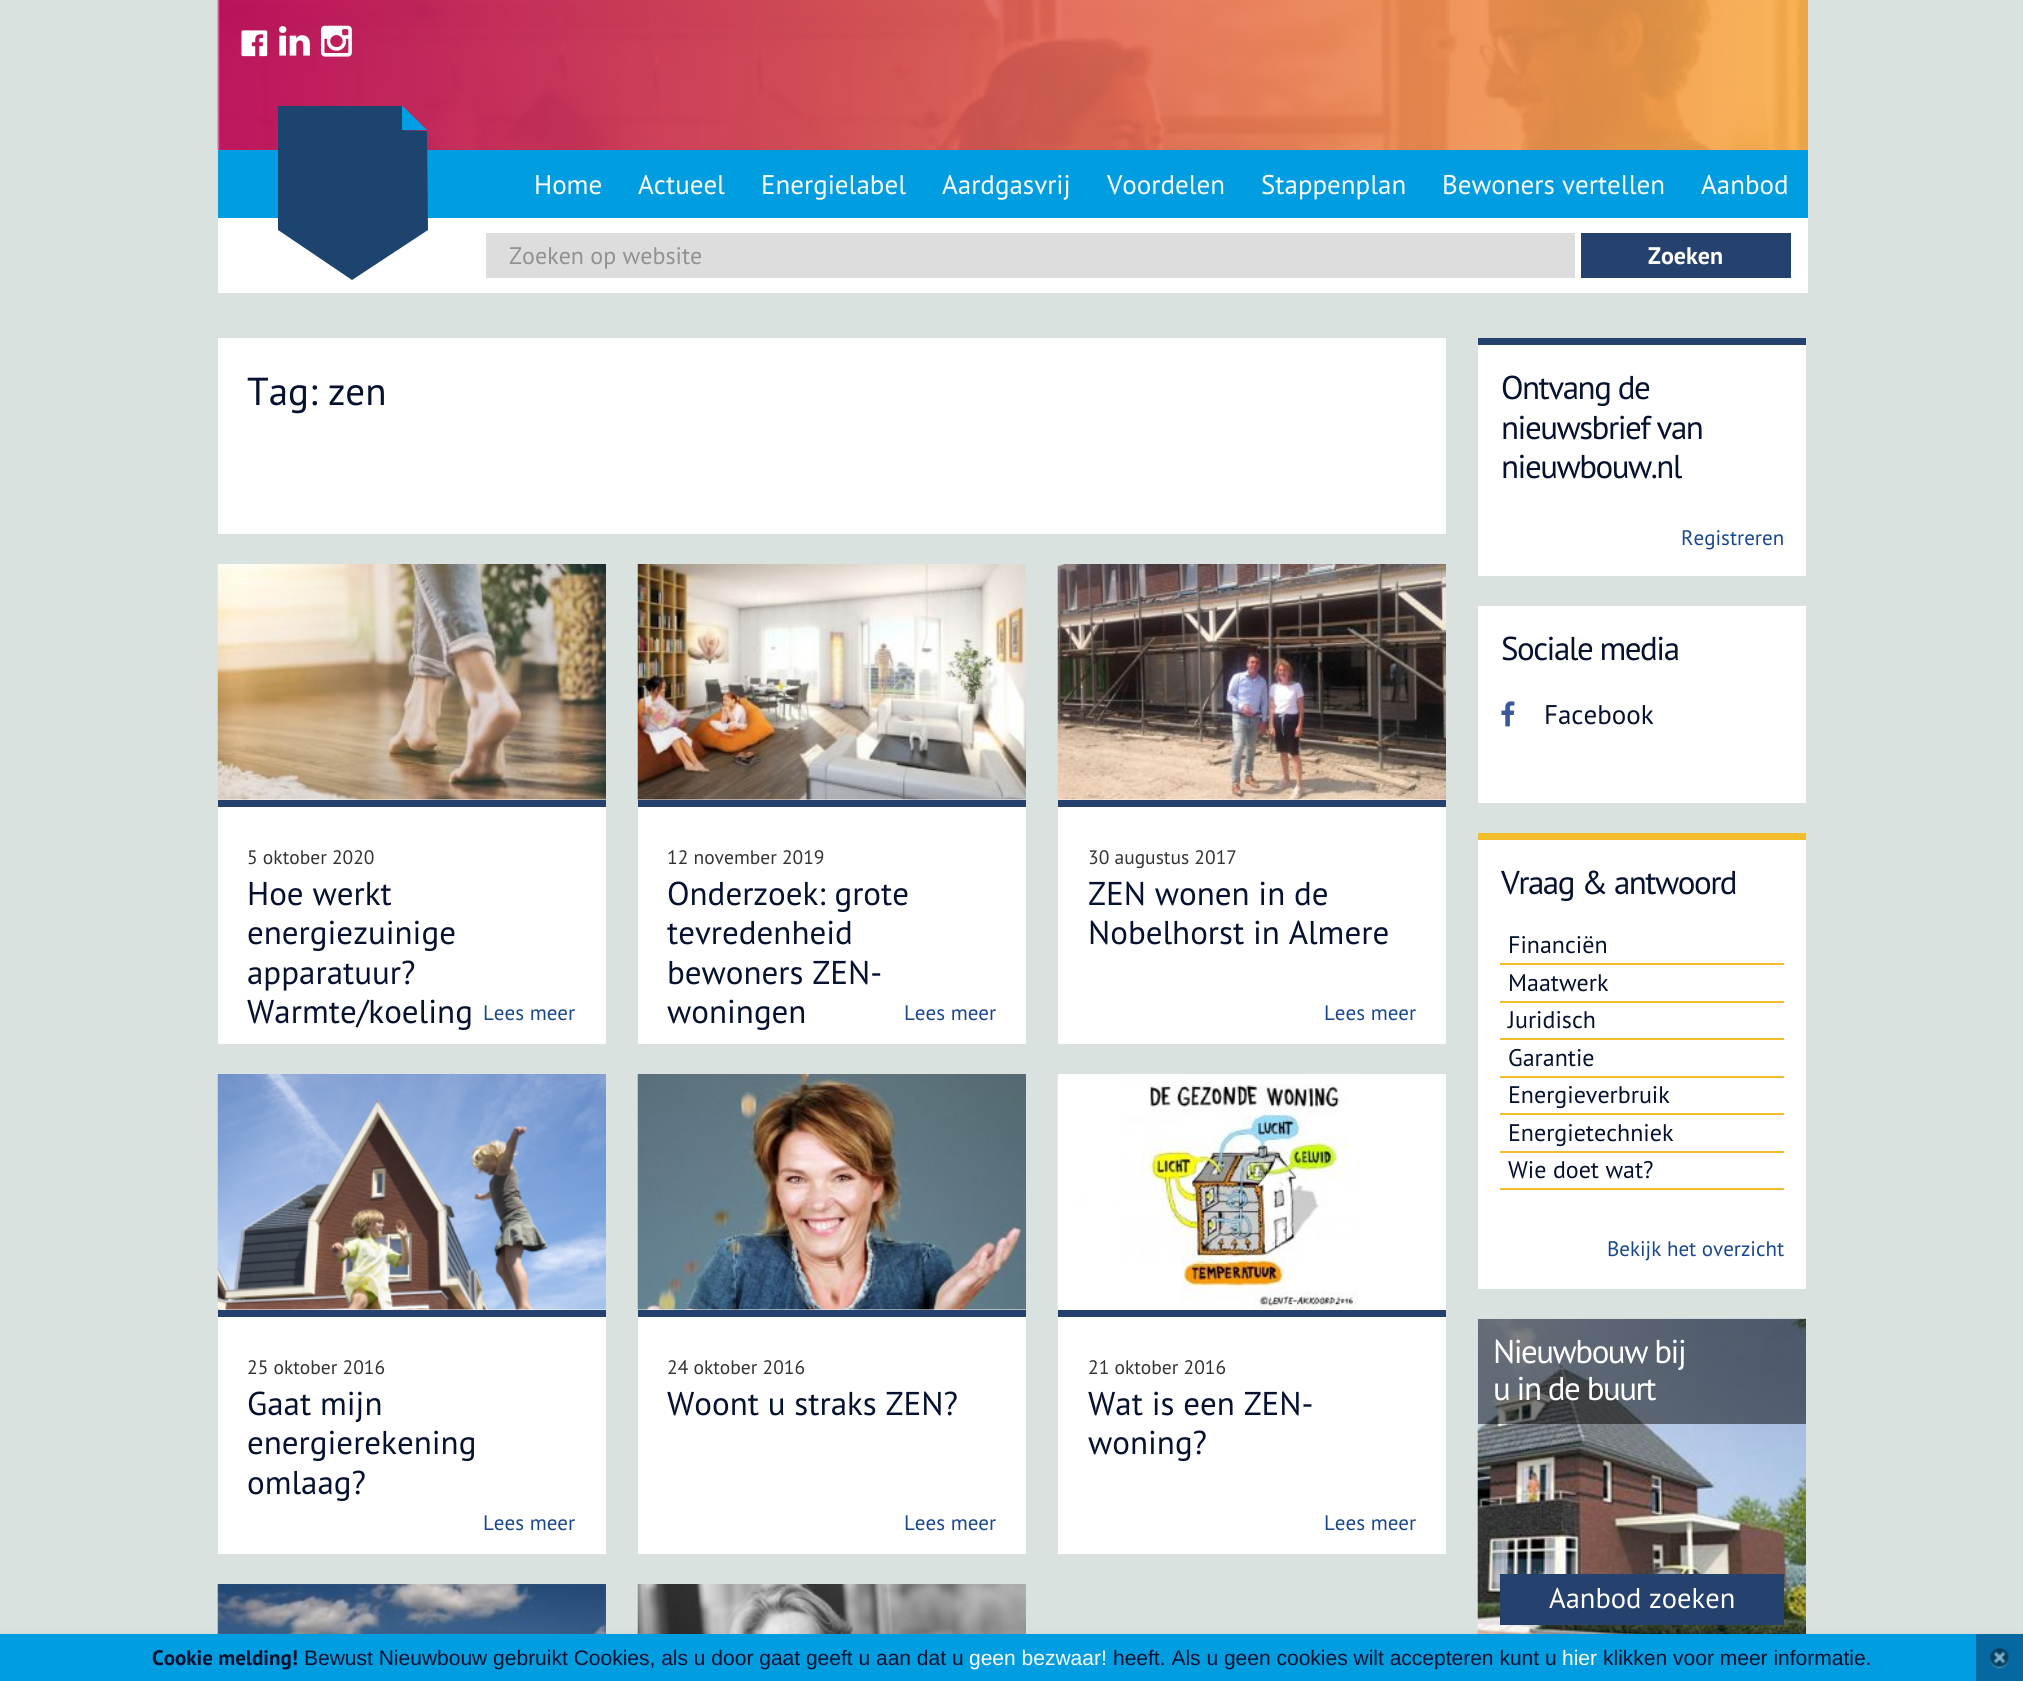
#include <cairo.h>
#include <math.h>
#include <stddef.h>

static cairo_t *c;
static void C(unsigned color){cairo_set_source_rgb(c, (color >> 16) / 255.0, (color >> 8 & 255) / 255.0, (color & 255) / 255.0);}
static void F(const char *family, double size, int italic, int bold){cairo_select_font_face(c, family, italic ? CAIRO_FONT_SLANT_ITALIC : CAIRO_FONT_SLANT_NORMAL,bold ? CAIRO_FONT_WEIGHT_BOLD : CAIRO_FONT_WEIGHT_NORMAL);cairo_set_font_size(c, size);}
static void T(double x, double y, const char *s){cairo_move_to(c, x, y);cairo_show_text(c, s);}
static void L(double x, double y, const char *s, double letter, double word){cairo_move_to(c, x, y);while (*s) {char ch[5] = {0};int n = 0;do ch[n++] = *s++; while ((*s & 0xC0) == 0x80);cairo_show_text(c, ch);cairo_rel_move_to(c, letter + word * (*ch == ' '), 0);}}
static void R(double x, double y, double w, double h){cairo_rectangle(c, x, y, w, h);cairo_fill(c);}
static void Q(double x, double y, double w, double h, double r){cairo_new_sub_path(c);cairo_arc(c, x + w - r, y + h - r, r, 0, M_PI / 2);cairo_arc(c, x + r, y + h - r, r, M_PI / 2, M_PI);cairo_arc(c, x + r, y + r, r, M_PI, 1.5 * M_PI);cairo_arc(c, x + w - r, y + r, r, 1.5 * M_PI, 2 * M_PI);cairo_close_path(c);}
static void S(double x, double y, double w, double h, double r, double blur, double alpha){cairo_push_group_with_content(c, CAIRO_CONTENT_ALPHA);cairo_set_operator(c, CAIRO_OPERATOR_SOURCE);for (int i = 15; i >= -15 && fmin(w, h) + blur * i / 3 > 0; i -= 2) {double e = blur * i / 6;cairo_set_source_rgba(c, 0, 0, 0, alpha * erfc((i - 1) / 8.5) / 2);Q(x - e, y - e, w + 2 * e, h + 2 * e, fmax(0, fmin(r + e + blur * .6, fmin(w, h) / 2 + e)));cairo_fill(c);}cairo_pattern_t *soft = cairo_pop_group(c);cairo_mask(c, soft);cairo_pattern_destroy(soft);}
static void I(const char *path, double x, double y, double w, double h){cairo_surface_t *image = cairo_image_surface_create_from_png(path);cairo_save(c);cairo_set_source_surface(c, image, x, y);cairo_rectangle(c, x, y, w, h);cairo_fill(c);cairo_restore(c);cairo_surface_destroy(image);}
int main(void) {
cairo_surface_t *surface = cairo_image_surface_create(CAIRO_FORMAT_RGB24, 2023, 1681);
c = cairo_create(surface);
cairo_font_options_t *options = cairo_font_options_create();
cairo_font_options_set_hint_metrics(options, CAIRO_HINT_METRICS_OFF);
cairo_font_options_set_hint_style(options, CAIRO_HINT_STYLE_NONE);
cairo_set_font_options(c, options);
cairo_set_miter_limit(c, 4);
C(0xd9e2df);
cairo_paint(c);
I("1.png",217,0,1591,150);
I("2.png",241,30,27,27);
I("3.png",279,26,31,30);
I("4.png",321,25,31,32);
C(0x009de1);
R(218,150,1590,68);
C(0xffffff);
R(218,218,1590,75);
C(0x1d436f);
cairo_new_path(c);
cairo_move_to(c,278,106);
cairo_line_to(c,278,230);
cairo_line_to(c,352,280);
cairo_line_to(c,428,230);
cairo_line_to(c,427,131);
cairo_line_to(c,402,130);
cairo_line_to(c,402,106);
cairo_close_path(c);
cairo_fill(c);
C(0x009fe3);
cairo_new_path(c);
cairo_move_to(c,402,105.5);
cairo_line_to(c,402,130);
cairo_line_to(c,427,130);
cairo_close_path(c);
cairo_fill(c);
F("PT Sans",27,0,0);
C(0xffffff);
T(534,194,"Home");
T(638,194,"Actueel");
T(761,194,"Energielabel");
T(942,194,"Aardgasvrij");
T(1107,194,"Voordelen");
T(1261,194,"Stappenplan");
T(1442,194,"Bewoners vertellen");
T(1701,194,"Aanbod");
C(0xdddddd);
R(486,233,1089,45);
F("PT Sans",24,0,0);
C(0x919191);
T(509,264,"Zoeken op website");
C(0x25426e);
R(1581,233,210,45);
F("PT Sans",24,0,1);
C(0xffffff);
T(1648,264,"Zoeken");
R(218,338,1228,196);
F("PT Sans",39,0,0);
C(0x05112f);
T(247,405,"Tag: zen");
C(0xffffff);
R(218,799,388,245);
C(0x25426e);
R(218,800,388,7);
I("5.png",217,564,389,236);
F("PT Sans",19.5,0,0);
C(0x333333);
T(247,864,"5 oktober 2020");
F("PT Sans",33,0,0);
C(0x05112f);
T(247,905,"Hoe werkt");
T(247,944,"energiezuinige");
T(247,984,"apparatuur?");
T(247,1023,"Warmte/koeling");
F("PT Sans",21,0,0);
C(0x19478c);
T(483,1020,"Lees meer");
C(0xffffff);
R(638,799,388,245);
C(0x25426e);
R(638,800,388,7);
I("6.png",637,564,389,236);
F("PT Sans",19.5,0,0);
C(0x333333);
T(667,864,"12 november 2019");
F("PT Sans",33,0,0);
C(0x05112f);
T(667,905,"Onderzoek: grote");
T(667,944,"tevredenheid");
T(667,984,"bewoners ZEN-");
T(667,1023,"woningen");
F("PT Sans",21,0,0);
C(0x19478c);
T(904,1020,"Lees meer");
C(0xffffff);
R(1058,799,388,245);
C(0x25426e);
R(1058,800,388,7);
I("7.png",1057,564,389,236);
F("PT Sans",19.5,0,0);
C(0x333333);
T(1088,864,"30 augustus 2017");
F("PT Sans",33,0,0);
C(0x05112f);
T(1088,905,"ZEN wonen in de");
T(1088,944,"Nobelhorst in Almere");
F("PT Sans",21,0,0);
C(0x19478c);
T(1324,1020,"Lees meer");
C(0xffffff);
R(218,1309,388,245);
C(0x25426e);
R(218,1310,388,7);
I("8.png",217,1074,389,236);
F("PT Sans",19.5,0,0);
C(0x333333);
T(247,1374,"25 oktober 2016");
F("PT Sans",33,0,0);
C(0x05112f);
T(247,1415,"Gaat mijn");
T(247,1454,"energierekening");
T(247,1494,"omlaag?");
F("PT Sans",21,0,0);
C(0x19478c);
T(483,1530,"Lees meer");
C(0xffffff);
R(638,1309,388,245);
C(0x25426e);
R(638,1310,388,7);
I("9.png",637,1074,389,236);
F("PT Sans",19.5,0,0);
C(0x333333);
T(667,1374,"24 oktober 2016");
F("PT Sans",33,0,0);
C(0x05112f);
T(667,1415,"Woont u straks ZEN?");
F("PT Sans",21,0,0);
C(0x19478c);
T(904,1530,"Lees meer");
C(0xffffff);
R(1058,1074,388,480);
C(0x25426e);
R(1058,1310,388,7);
I("10.png",1057,1074,301,236);
F("PT Sans",19.5,0,0);
C(0x333333);
T(1088,1374,"21 oktober 2016");
F("PT Sans",33,0,0);
C(0x05112f);
T(1088,1415,"Wat is een ZEN-");
T(1088,1454,"woning?");
F("PT Sans",21,0,0);
C(0x19478c);
T(1324,1530,"Lees meer");
I("11.png",217,1584,389,50);
I("12.png",637,1584,389,50);
C(0xffffff);
R(1478,345,328,231);
C(0x25426e);
R(1478,338,328,7);
F("PT Sans",33,0,0);
C(0x05112f);
L(1501,399,"Ontvang de",-1.5,0);
L(1501,439,"nieuwsbrief van",-1.5,0);
L(1501,478,"nieuwbouw.nl",-1.5,0);
F("PT Sans",21,0,0);
C(0x19478c);
T(1681,545,"Registreren");
C(0xffffff);
R(1478,606,328,197);
F("PT Sans",33,0,0);
C(0x05112f);
L(1501,660,"Sociale media",-1.5,0);
I("13.png",1501,701,14,26);
F("PT Sans",27,0,0);
T(1544,724,"Facebook");
C(0xffffff);
R(1478,840,328,449);
C(0xf2bc2b);
R(1478,833,328,7);
F("PT Sans",33,0,0);
C(0x05112f);
L(1501,894,"Vraag & antwoord",-1.5,0);
C(0xf2bc2b);
R(1500,963,284,2);
F("PT Sans",24,0,0);
C(0x05112f);
T(1508,953,"Financiën");
C(0xf2bc2b);
R(1500,1001,284,2);
C(0x05112f);
T(1508,991,"Maatwerk");
C(0xf2bc2b);
R(1500,1038,284,2);
C(0x05112f);
T(1508,1028,"Juridisch");
C(0xf2bc2b);
R(1500,1076,284,2);
C(0x05112f);
T(1508,1066,"Garantie");
C(0xf2bc2b);
R(1500,1113,284,2);
C(0x05112f);
T(1508,1103,"Energieverbruik");
C(0xf2bc2b);
R(1500,1151,284,2);
C(0x05112f);
T(1508,1141,"Energietechniek");
C(0xf2bc2b);
R(1500,1188,284,2);
C(0x05112f);
T(1508,1178,"Wie doet wat?");
F("PT Sans",21,0,0);
C(0x19478c);
T(1607,1256,"Bekijk het overzicht");
I("14.png",1477,1318,329,316);
cairo_set_source_rgba(c,0,0,0,0.5);
R(1478,1319,328,105);
F("PT Sans",33,0,0);
C(0xffffff);
L(1493,1363,"Nieuwbouw bij",-1.5,0);
L(1493,1400,"u in de buurt",-1.5,0);
C(0x25426e);
R(1500,1574,284,51);
F("PT Sans",28.5,0,0);
C(0xffffff);
T(1549,1608,"Aanbod zoeken");
C(0x000000);
S(-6,1640,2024,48,0,6,.2);
C(0x009de1);
R(0,1634,1976,47);
F("PT Sans",21,0,1);
C(0x05112f);
T(152,1665,"Cookie melding!");
F("Liberation Sans",21,0,0);
T(304,1665,"Bewust Nieuwbouw gebruikt Cookies, als u door gaat geeft u aan dat u");
C(0xffffff);
T(969,1665,"geen bezwaar!");
C(0x05112f);
T(1113,1665,"heeft. Als u geen cookies wilt accepteren kunt u");
C(0xffffff);
T(1562,1665,"hier");
C(0x05112f);
T(1603,1665,"klikken voor meer informatie.");
C(0x0668a0);
R(1976,1634,47,47);
I("15.png",1990,1648,19,21);
cairo_surface_write_to_png(surface, "o.png");
cairo_font_options_destroy(options);
cairo_destroy(c);
cairo_surface_destroy(surface);
return 0;
}
